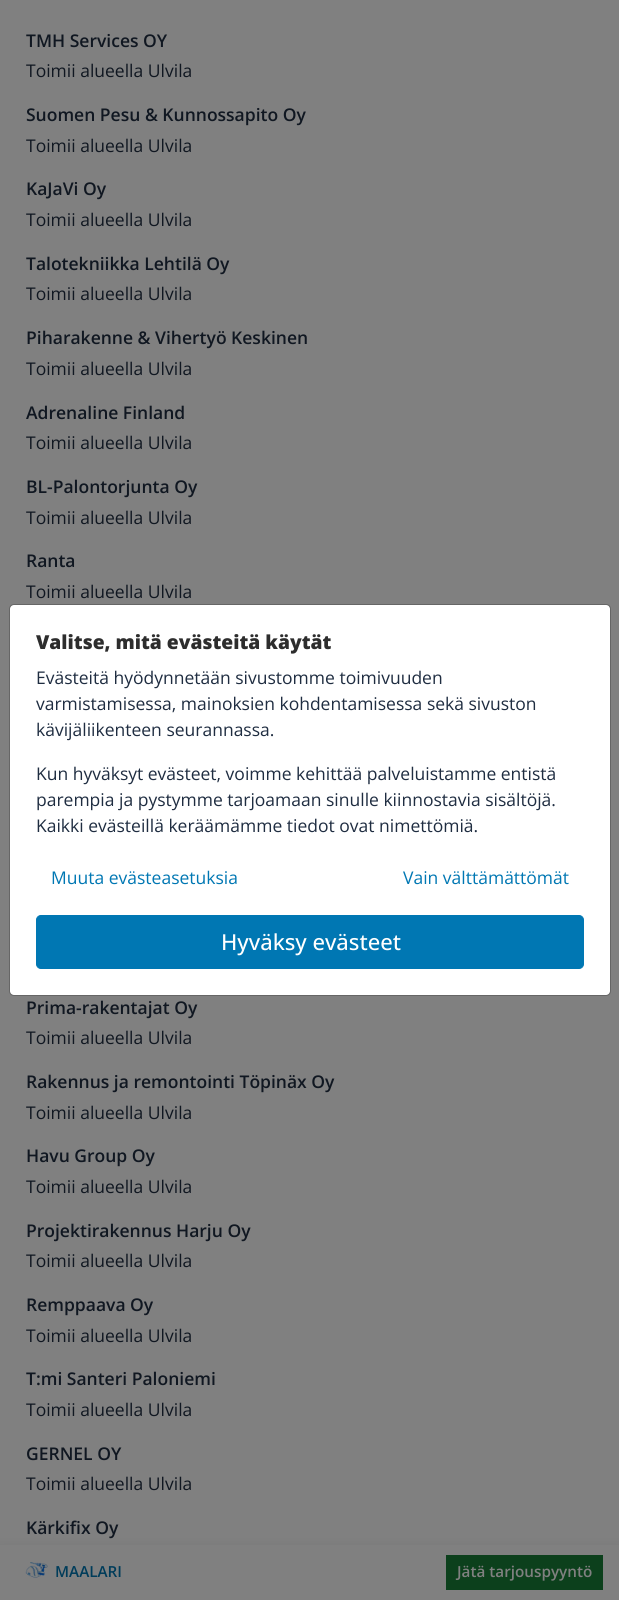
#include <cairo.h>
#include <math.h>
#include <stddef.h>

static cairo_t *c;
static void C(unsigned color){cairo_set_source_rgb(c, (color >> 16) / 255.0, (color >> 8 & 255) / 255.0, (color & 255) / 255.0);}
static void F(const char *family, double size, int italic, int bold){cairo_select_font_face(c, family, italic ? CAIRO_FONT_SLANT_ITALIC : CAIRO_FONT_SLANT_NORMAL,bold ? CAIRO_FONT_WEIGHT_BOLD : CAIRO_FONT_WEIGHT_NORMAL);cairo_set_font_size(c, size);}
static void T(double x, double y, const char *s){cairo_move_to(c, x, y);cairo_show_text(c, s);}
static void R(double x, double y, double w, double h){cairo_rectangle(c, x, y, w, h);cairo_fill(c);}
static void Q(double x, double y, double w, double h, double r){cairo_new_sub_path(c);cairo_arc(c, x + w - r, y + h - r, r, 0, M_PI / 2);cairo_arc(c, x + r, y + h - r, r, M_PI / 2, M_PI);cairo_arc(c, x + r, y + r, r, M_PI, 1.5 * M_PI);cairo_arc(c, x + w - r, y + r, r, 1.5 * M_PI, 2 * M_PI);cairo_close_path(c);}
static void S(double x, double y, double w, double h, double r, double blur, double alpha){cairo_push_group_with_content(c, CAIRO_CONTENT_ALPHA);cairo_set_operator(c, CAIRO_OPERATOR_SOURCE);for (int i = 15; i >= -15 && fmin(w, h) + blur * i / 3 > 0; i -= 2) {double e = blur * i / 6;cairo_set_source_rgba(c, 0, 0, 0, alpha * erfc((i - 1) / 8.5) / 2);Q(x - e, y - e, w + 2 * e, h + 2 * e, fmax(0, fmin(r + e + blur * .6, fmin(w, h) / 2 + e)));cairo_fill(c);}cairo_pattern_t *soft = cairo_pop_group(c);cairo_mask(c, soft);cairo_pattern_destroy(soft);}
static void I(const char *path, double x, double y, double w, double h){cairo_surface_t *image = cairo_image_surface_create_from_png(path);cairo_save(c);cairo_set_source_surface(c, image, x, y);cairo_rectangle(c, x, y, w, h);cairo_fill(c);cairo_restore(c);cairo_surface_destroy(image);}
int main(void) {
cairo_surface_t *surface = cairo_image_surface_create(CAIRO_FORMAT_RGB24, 619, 1600);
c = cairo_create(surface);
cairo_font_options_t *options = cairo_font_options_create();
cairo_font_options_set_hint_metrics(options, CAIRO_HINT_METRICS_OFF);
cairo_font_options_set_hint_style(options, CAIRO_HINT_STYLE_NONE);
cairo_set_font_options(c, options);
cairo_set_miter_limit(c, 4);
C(0x808080);
cairo_paint(c);
F("Open Sans SemiBold",17.5,0,0);
C(0x101721);
T(26,47,"TMH Services OY");
F("Open Sans",17.5,0,0);
T(26,77,"Toimii alueella Ulvila");
F("Open Sans SemiBold",17.5,0,0);
T(26,121,"Suomen Pesu & Kunnossapito Oy");
F("Open Sans",17.5,0,0);
T(26,152,"Toimii alueella Ulvila");
F("Open Sans SemiBold",17.5,0,0);
T(26,195,"KaJaVi Oy");
F("Open Sans",17.5,0,0);
T(26,226,"Toimii alueella Ulvila");
F("Open Sans SemiBold",17.5,0,0);
T(26,270,"Talotekniikka Lehtilä Oy");
F("Open Sans",17.5,0,0);
T(26,300,"Toimii alueella Ulvila");
F("Open Sans SemiBold",17.5,0,0);
T(26,344,"Piharakenne & Vihertyö Keskinen");
F("Open Sans",17.5,0,0);
T(26,375,"Toimii alueella Ulvila");
F("Open Sans SemiBold",17.5,0,0);
T(26,419,"Adrenaline Finland");
F("Open Sans",17.5,0,0);
T(26,449,"Toimii alueella Ulvila");
F("Open Sans SemiBold",17.5,0,0);
T(26,493,"BL-Palontorjunta Oy");
F("Open Sans",17.5,0,0);
T(26,524,"Toimii alueella Ulvila");
F("Open Sans SemiBold",17.5,0,0);
T(26,567,"Ranta");
F("Open Sans",17.5,0,0);
T(26,598,"Toimii alueella Ulvila");
F("Open Sans SemiBold",17.5,0,0);
T(26,1014,"Prima-rakentajat Oy");
F("Open Sans",17.5,0,0);
T(26,1044,"Toimii alueella Ulvila");
F("Open Sans SemiBold",17.5,0,0);
T(26,1088,"Rakennus ja remontointi Töpinäx Oy");
F("Open Sans",17.5,0,0);
T(26,1119,"Toimii alueella Ulvila");
F("Open Sans SemiBold",17.5,0,0);
T(26,1162,"Havu Group Oy");
F("Open Sans",17.5,0,0);
T(26,1193,"Toimii alueella Ulvila");
F("Open Sans SemiBold",17.5,0,0);
T(26,1237,"Projektirakennus Harju Oy");
F("Open Sans",17.5,0,0);
T(26,1267,"Toimii alueella Ulvila");
F("Open Sans SemiBold",17.5,0,0);
T(26,1311,"Remppaava Oy");
F("Open Sans",17.5,0,0);
T(26,1342,"Toimii alueella Ulvila");
F("Open Sans SemiBold",17.5,0,0);
T(26,1385,"T:mi Santeri Paloniemi");
F("Open Sans",17.5,0,0);
T(26,1416,"Toimii alueella Ulvila");
F("Open Sans SemiBold",17.5,0,0);
T(26,1460,"GERNEL OY");
F("Open Sans",17.5,0,0);
T(26,1490,"Toimii alueella Ulvila");
F("Open Sans SemiBold",17.5,0,0);
T(26,1534,"Kärkifix Oy");
C(0xffffff);
Q(10,605,600,390,4);
cairo_fill(c);
Q(9.5,604.5,601,391,4.5);
cairo_set_source_rgba(c,0,0,0,0.2);
cairo_set_line_width(c,1);
cairo_stroke(c);
F("Open Sans ExtraBold",19.25,0,0);
C(0x2d2d2d);
T(36,649,"Valitse, mitä evästeitä käytät");
F("Open Sans",17.5,0,0);
C(0x1f2d41);
T(36,684,"Evästeitä hyödynnetään sivustomme toimivuuden");
T(36,710,"varmistamisessa, mainoksien kohdentamisessa sekä sivuston");
T(36,736,"kävijäliikenteen seurannassa.");
T(36,780,"Kun hyväksyt evästeet, voimme kehittää palveluistamme entistä");
T(36,806,"parempia ja pystymme tarjoamaan sinulle kiinnostavia sisältöjä.");
T(36,832,"Kaikki evästeillä keräämämme tiedot ovat nimettömiä.");
C(0x0077b3);
T(51,884,"Muuta evästeasetuksia");
T(403,884,"Vain välttämättömät");
Q(36.5,915.5,547,53,4.5);
cairo_fill_preserve(c);
cairo_stroke(c);
F("Open Sans Medium",22,0,0);
C(0xffffff);
T(221,950,"Hyväksy evästeet");
C(0x000000);
S(0,1554,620,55,0,9,.15);
C(0x808080);
R(0,1545,619,55);
I("1.png",25,1562,23,16);
F("Open Sans SemiBold",15.25,0,0);
C(0x003c5a);
T(55,1577,"MAALARI");
C(0x0c401c);
R(446,1555,157,35);
C(0x808080);
T(457,1577,"Jätä tarjouspyyntö");
cairo_surface_write_to_png(surface, "o.png");
cairo_font_options_destroy(options);
cairo_destroy(c);
cairo_surface_destroy(surface);
return 0;
}
